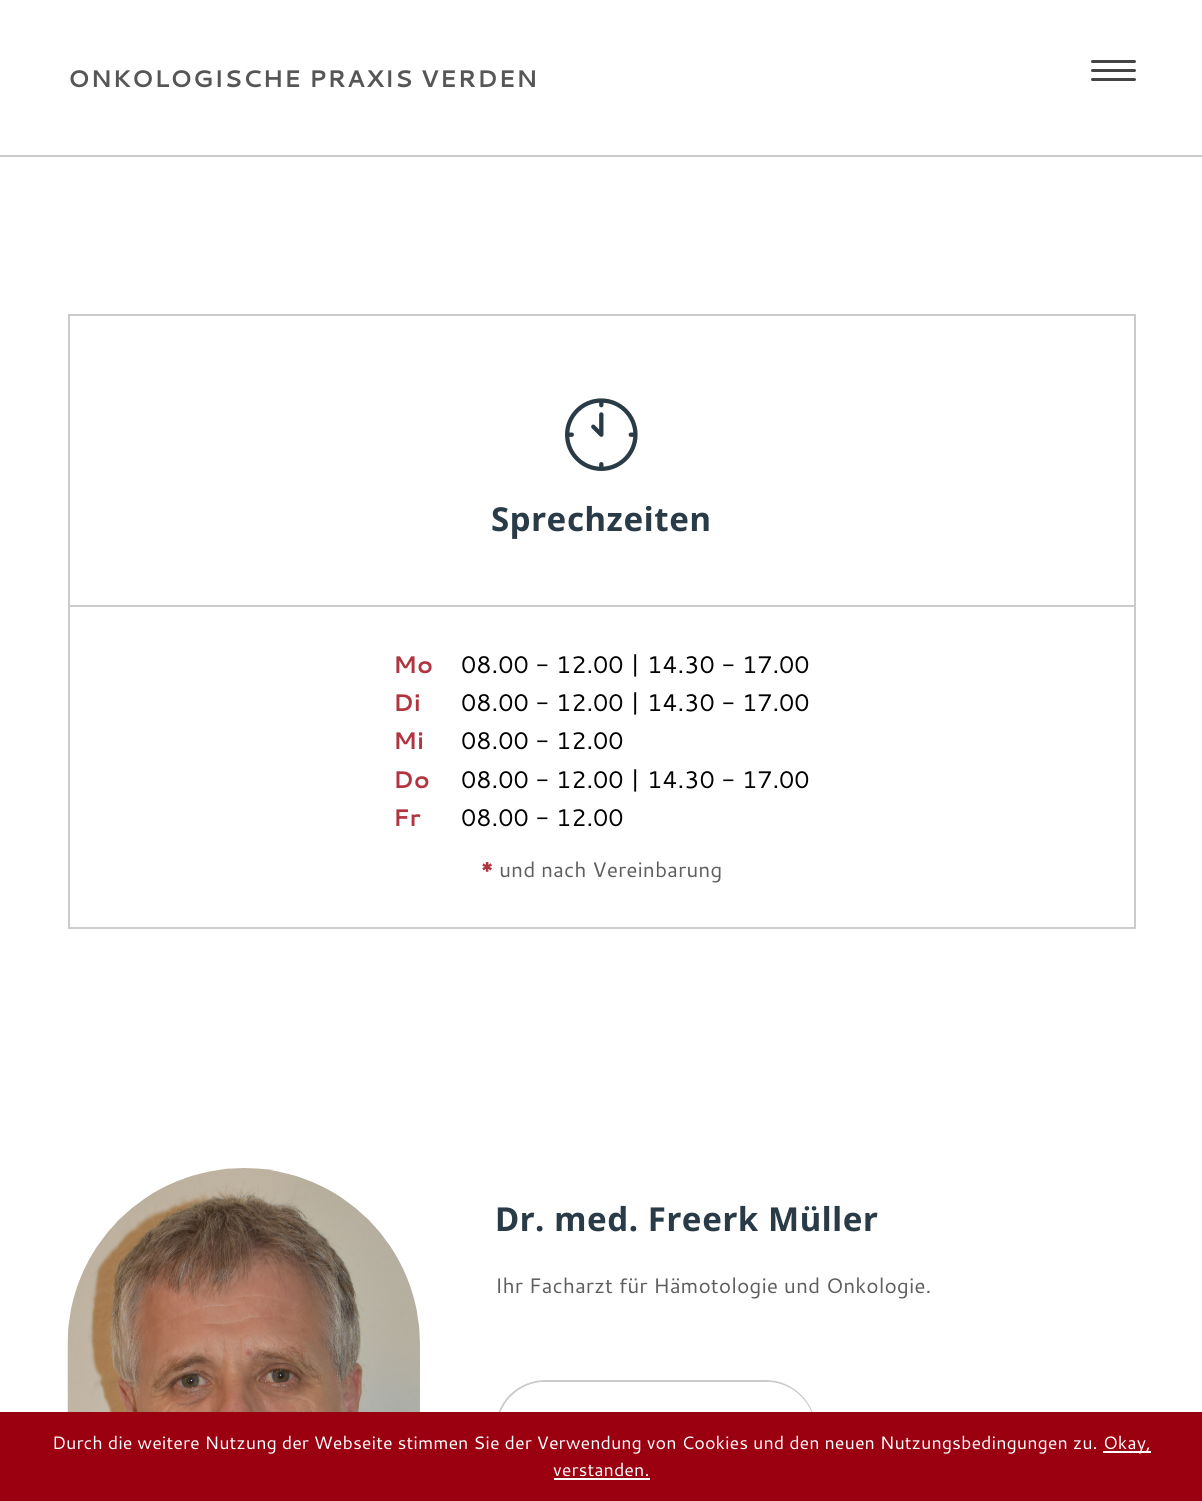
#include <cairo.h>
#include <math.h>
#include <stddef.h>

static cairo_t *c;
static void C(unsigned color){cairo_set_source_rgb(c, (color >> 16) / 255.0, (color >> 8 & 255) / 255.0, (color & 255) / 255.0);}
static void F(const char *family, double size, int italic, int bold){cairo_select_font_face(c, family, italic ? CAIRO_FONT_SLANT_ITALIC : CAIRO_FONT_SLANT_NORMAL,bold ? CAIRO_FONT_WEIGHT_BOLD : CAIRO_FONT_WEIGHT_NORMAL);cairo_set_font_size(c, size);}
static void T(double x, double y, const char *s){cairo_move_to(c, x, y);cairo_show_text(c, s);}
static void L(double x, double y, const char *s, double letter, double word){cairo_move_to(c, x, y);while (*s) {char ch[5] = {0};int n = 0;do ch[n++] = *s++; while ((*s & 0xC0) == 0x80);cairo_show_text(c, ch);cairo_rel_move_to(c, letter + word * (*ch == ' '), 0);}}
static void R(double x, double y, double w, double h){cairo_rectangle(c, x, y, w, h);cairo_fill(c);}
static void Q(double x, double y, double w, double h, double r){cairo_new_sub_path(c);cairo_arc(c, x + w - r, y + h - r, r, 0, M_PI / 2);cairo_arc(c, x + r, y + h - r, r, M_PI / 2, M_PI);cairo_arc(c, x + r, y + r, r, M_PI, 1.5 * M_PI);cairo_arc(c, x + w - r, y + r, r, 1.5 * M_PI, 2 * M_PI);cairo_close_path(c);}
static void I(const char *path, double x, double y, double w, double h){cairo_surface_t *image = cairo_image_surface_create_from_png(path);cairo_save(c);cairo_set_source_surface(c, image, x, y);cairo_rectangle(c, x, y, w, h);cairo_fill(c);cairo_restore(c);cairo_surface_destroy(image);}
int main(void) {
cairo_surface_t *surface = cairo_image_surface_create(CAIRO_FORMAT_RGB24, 1202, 1501);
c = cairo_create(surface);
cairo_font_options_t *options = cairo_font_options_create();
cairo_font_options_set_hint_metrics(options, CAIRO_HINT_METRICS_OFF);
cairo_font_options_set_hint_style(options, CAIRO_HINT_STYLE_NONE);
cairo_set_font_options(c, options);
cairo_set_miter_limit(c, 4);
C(0xffffff);
cairo_paint(c);
C(0xcbcbcb);
R(0,155,1202,2);
F("Cantarell",24,0,1);
C(0x565656);
L(68,87,"ONKOLOGISCHE PRAXIS VERDEN",.75,0);
C(0x454545);
Q(1091,60,45,3,1.5);
cairo_fill(c);
Q(1091,69,45,3,1.5);
cairo_fill(c);
Q(1091,78,45,3,1.5);
cairo_fill(c);
cairo_rectangle(c,69,315,1066,613);
C(0xcbcbcb);
cairo_stroke(c);
I("1.png",565,398,73,73);
F("Noto Sans",33,0,1);
C(0x2a3b48);
L(491,531,"Sprechzeiten",.6,0);
C(0xcccccc);
R(69,605,1065,2);
F("Cantarell",24,0,1);
C(0xb13541);
T(393,673,"Mo");
F("Cantarell",24,0,0);
C(0x000000);
T(461,673,"08.00 - 12.00 | 14.30 - 17.00");
F("Cantarell",24,0,1);
C(0xb13541);
T(393,711,"Di");
F("Cantarell",24,0,0);
C(0x000000);
T(461,711,"08.00 - 12.00 | 14.30 - 17.00");
F("Cantarell",24,0,1);
C(0xb13541);
T(393,749,"Mi");
F("Cantarell",24,0,0);
C(0x000000);
T(461,749,"08.00 - 12.00");
F("Cantarell",24,0,1);
C(0xb13541);
T(393,788,"Do");
F("Cantarell",24,0,0);
C(0x000000);
T(461,788,"08.00 - 12.00 | 14.30 - 17.00");
F("Cantarell",24,0,1);
C(0xb13541);
T(393,826,"Fr");
F("Cantarell",24,0,0);
C(0x000000);
T(461,826,"08.00 - 12.00");
F("Cantarell",21,0,1);
C(0xb13541);
T(481,877,"*");
F("Cantarell",21,0,0);
C(0x5e5e5e);
T(499,877,"und nach Vereinbarung");
I("2.png",67,1168,353,244);
F("Noto Sans",33,0,1);
C(0x2a3b48);
L(495,1231,"Dr. med. Freerk Müller",.6,0);
F("Cantarell",21,0,0);
C(0x5e5e5e);
T(495,1293,"Ihr Facharzt für Hämotologie und Onkologie.");
Q(496,1381,319,99,49.5);
C(0xcbcbcb);
cairo_stroke(c);
C(0xffffff);
Q(497,1382,318,97,48.5);
cairo_fill(c);
C(0x9b0011);
R(0,1412,1202,89);
F("Cantarell",18,0,0);
C(0xffffff);
T(52,1449,"Durch die weitere Nutzung der Webseite stimmen Sie der Verwendung von Cookies und den neuen Nutzungsbedingungen zu.");
R(1103,1451,48,2);
T(1103,1449,"Okay,");
T(553,1476,"verstanden.");
R(554,1478,96,2);
cairo_surface_write_to_png(surface, "o.png");
cairo_font_options_destroy(options);
cairo_destroy(c);
cairo_surface_destroy(surface);
return 0;
}
